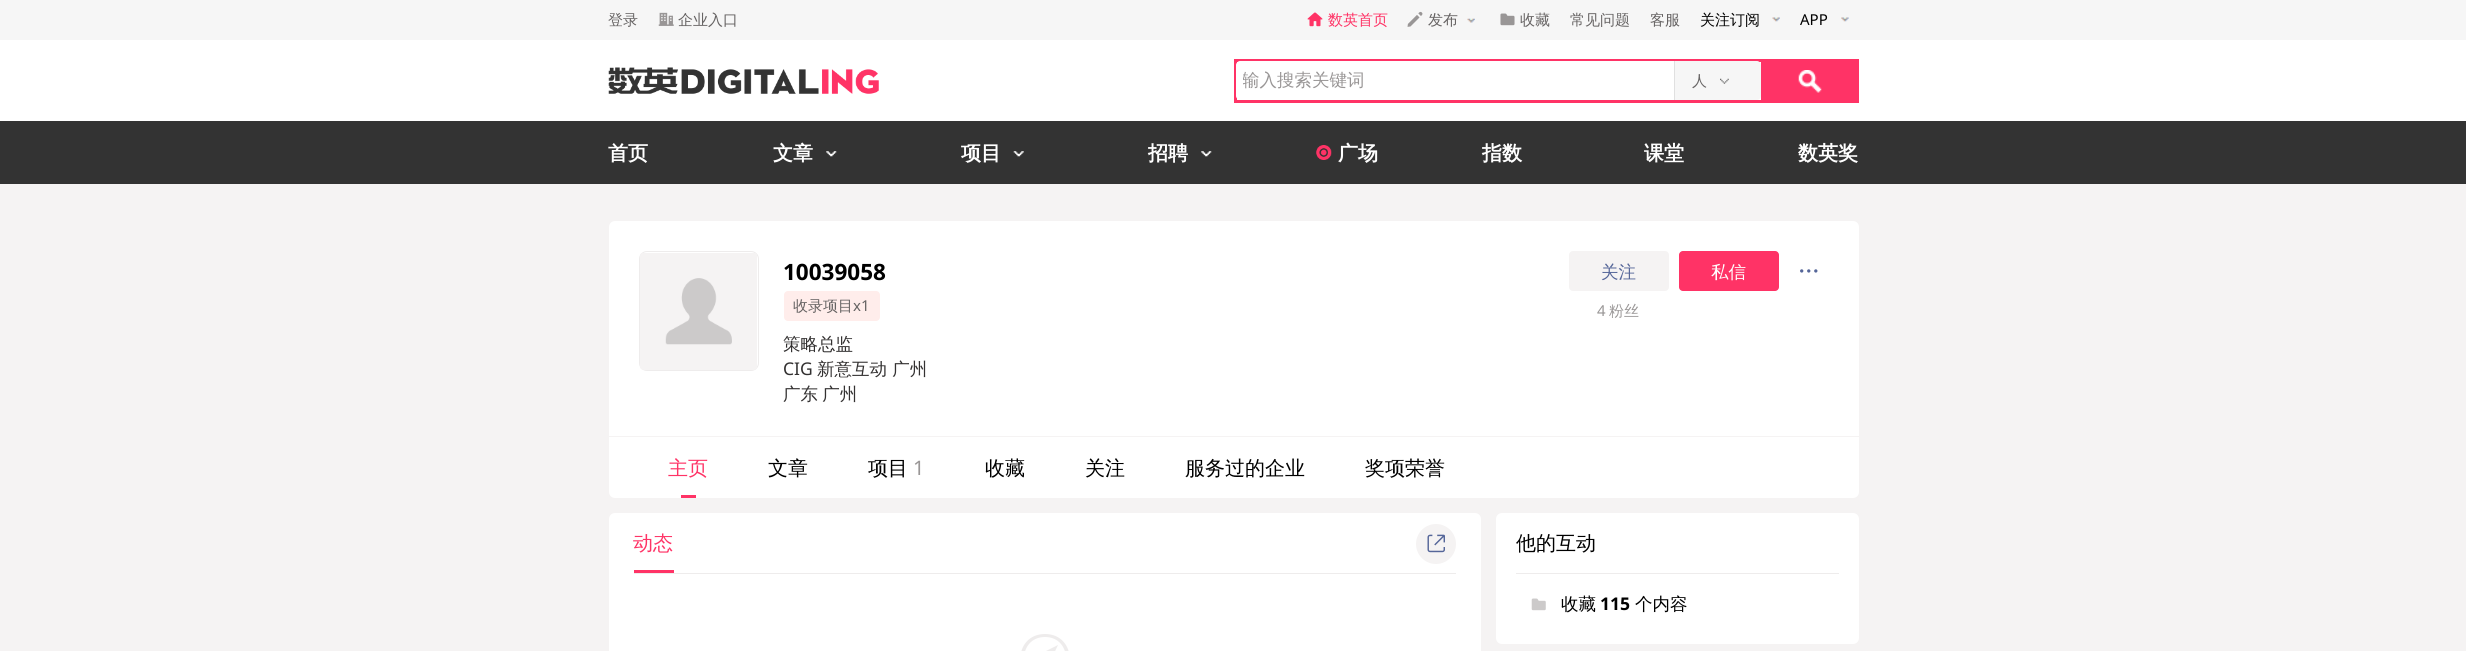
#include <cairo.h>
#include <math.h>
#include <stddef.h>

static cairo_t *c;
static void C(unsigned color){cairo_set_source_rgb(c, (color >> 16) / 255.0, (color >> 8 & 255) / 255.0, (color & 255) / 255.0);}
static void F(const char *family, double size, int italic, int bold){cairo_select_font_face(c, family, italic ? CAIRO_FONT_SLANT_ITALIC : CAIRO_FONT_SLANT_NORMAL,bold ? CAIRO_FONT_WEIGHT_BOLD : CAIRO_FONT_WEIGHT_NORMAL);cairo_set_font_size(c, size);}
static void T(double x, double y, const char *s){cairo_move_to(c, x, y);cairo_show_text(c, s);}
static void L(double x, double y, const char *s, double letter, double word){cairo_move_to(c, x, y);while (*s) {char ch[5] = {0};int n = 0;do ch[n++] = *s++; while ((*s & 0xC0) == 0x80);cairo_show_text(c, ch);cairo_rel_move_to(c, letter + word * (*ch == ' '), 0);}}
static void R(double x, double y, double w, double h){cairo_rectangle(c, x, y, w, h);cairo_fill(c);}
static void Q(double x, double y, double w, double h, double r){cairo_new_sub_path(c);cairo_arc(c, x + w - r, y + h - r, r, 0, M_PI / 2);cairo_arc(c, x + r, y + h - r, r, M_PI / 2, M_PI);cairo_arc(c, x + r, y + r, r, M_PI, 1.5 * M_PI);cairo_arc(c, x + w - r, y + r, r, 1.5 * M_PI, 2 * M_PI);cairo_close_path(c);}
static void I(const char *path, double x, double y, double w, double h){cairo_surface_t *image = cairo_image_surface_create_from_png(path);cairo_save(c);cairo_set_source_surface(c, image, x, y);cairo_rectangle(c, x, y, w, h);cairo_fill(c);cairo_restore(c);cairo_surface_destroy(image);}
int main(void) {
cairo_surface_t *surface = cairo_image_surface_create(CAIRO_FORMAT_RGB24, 2466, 651);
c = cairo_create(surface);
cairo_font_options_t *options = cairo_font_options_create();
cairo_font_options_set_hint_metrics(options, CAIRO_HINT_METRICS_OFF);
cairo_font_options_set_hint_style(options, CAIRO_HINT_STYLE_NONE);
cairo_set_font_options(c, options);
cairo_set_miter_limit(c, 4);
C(0xf5f3f3);
cairo_paint(c);
C(0xffffff);
R(0,40,2466,81);
C(0xf6f6f6);
R(0,0,2466,40);
F("WenQuanYi Zen Hei Medium",15,0,0);
C(0x666363);
T(608,25,"登录");
I("1.png",658,12,16,14);
T(678,25,"企业入口");
I("2.png",1307,12,16,15);
C(0xff3366);
T(1328,25,"数英首页");
I("3.png",1407,11,16,16);
C(0x666363);
T(1428,25,"发布");
I("4.png",1467,18,8,5);
I("5.png",1500,13,15,13);
T(1520,25,"收藏");
T(1570,25,"常见问题");
T(1650,25,"客服");
C(0x000000);
T(1700,25,"关注订阅");
I("6.png",1772,17,8,5);
F("Noto Sans",15,0,0);
T(1800,25,"APP");
I("7.png",1841,17,8,5);
I("8.png",608,67,271,27);
C(0xff3366);
R(1234,59,527,3);
R(1234,100,527,3);
R(1234,59,3,44);
C(0xffffff);
cairo_new_path(c);
cairo_move_to(c,1240,61);
cairo_line_to(c,1674,61);
cairo_line_to(c,1674,100);
cairo_line_to(c,1240,100);
cairo_curve_to(c,1238,100,1236,98,1236,96);
cairo_line_to(c,1236,65);
cairo_curve_to(c,1236,63,1238,61,1240,61);
cairo_close_path(c);
cairo_fill(c);
cairo_save(c);
cairo_rectangle(c,1243,70,425,23);
cairo_clip(c);
F("WenQuanYi Zen Hei Medium",17.5,0,0);
C(0x999696);
T(1242,86,"输入搜索关键词");
cairo_restore(c);
C(0xf6f6f6);
cairo_new_path(c);
cairo_move_to(c,1674,61);
cairo_line_to(c,1757,61);
cairo_curve_to(c,1759,61,1761,63,1761,65);
cairo_line_to(c,1761,96);
cairo_curve_to(c,1761,98,1759,100,1757,100);
cairo_line_to(c,1674,100);
cairo_close_path(c);
cairo_fill(c);
C(0xe0e0e0);
R(1674,61,1,39);
F("WenQuanYi Zen Hei Medium",15,0,0);
C(0x666363);
T(1692,86,"人");
I("9.png",1720,78,9,6);
C(0xff3366);
R(1761,59,98,44);
I("10.png",1798,70,24,23);
C(0x333333);
R(0,121,2466,63);
F("WenQuanYi Zen Hei",20,0,1);
C(0xffffff);
T(608,160,"首页");
T(773,160,"文章");
I("11.png",826,151,11,6);
T(961,160,"项目");
I("12.png",1013,151,11,6);
T(1148,160,"招聘");
I("11.png",1201,151,11,6);
I("13.png",1316,145,16,15);
T(1338,160,"广场");
T(1482,160,"指数");
T(1644,160,"课堂");
T(1798,160,"数英奖");
Q(609,221,1250,277,6);
cairo_fill(c);
Q(639.5,251.5,119,119,7.5);
C(0xeeecec);
cairo_set_line_width(c,1);
cairo_stroke(c);
I("14.png",640,253,117,117);
F("Noto Sans",22.5,0,1);
C(0x000000);
T(783,280,"10039058");
C(0xffedeb);
Q(784,291,96,30,4);
cairo_fill(c);
F("WenQuanYi Zen Hei Medium",15,0,0);
C(0x666363);
T(793,311,"收录项目");
F("Noto Sans",15,0,0);
T(853,311,"x1");
F("WenQuanYi Zen Hei Medium",17.5,0,0);
C(0x333131);
T(783,350,"策略总监");
F("Noto Sans",17.5,0,0);
T(783,375,"CIG");
F("WenQuanYi Zen Hei Medium",17.5,0,0);
T(817,375,"新意互动 广州");
L(783,400,"广东 广州",0,-1);
C(0xf5f3f3);
Q(1569,251,100,40,4);
cairo_fill(c);
C(0x556699);
T(1601,278,"关注");
C(0xff3366);
Q(1679,251,100,40,4);
cairo_fill(c);
C(0xffffff);
T(1711,278,"私信");
I("15.png",1800,269,18,4);
F("Noto Sans",15,0,0);
C(0x999696);
T(1597,316,"4");
F("WenQuanYi Zen Hei Medium",15,0,0);
T(1609,316,"粉丝");
C(0xf5f3f3);
R(609,436,1250,1);
F("WenQuanYi Zen Hei Medium",20,0,0);
C(0xff3366);
T(668,475,"主页");
R(681,495,15,3);
C(0x000000);
T(768,475,"文章");
T(868,475,"项目");
F("Noto Sans",20,0,0);
C(0x999696);
T(913,475,"1");
F("WenQuanYi Zen Hei Medium",20,0,0);
C(0x000000);
T(985,475,"收藏");
T(1085,475,"关注");
T(1185,475,"服务过的企业");
T(1365,475,"奖项荣誉");
C(0xffffff);
Q(609,513,872,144,6);
cairo_fill(c);
C(0xeeecec);
R(634,573,822,1);
C(0xff3366);
T(633,550,"动态");
R(634,570,40,3);
C(0xf5f3f3);
cairo_new_path(c);
cairo_arc(c,1436,544,20,0,2 * M_PI);
cairo_fill(c);
I("16.png",1427,534,18,19);
C(0xeeecec);
cairo_new_path(c);
cairo_move_to(c,1045,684);
cairo_curve_to(c,1012,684,1012,634,1045,634);
cairo_curve_to(c,1078,634,1078,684,1045,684);
cairo_close_path(c);
cairo_move_to(c,1045,637);
cairo_curve_to(c,1017,637,1017,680,1045,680);
cairo_curve_to(c,1073,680,1073,637,1045,637);
cairo_close_path(c);
cairo_move_to(c,1040,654);
cairo_line_to(c,1031,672);
cairo_line_to(c,1049,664);
cairo_line_to(c,1058,645);
cairo_close_path(c);
cairo_move_to(c,1045,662);
cairo_curve_to(c,1040,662,1040,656,1045,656);
cairo_curve_to(c,1049,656,1049,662,1045,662);
cairo_close_path(c);
cairo_fill(c);
C(0xffffff);
Q(1496,513,363,131,6);
cairo_fill(c);
C(0xeeecec);
R(1516,573,323,1);
C(0x000000);
T(1516,550,"他的互动");
I("17.png",1531,598,15,13);
F("WenQuanYi Zen Hei Medium",17.5,0,0);
T(1561,610,"收藏");
F("Noto Sans",17.5,0,1);
T(1600,610,"115");
F("WenQuanYi Zen Hei Medium",17.5,0,0);
T(1635,610,"个内容");
cairo_surface_write_to_png(surface, "o.png");
cairo_font_options_destroy(options);
cairo_destroy(c);
cairo_surface_destroy(surface);
return 0;
}
